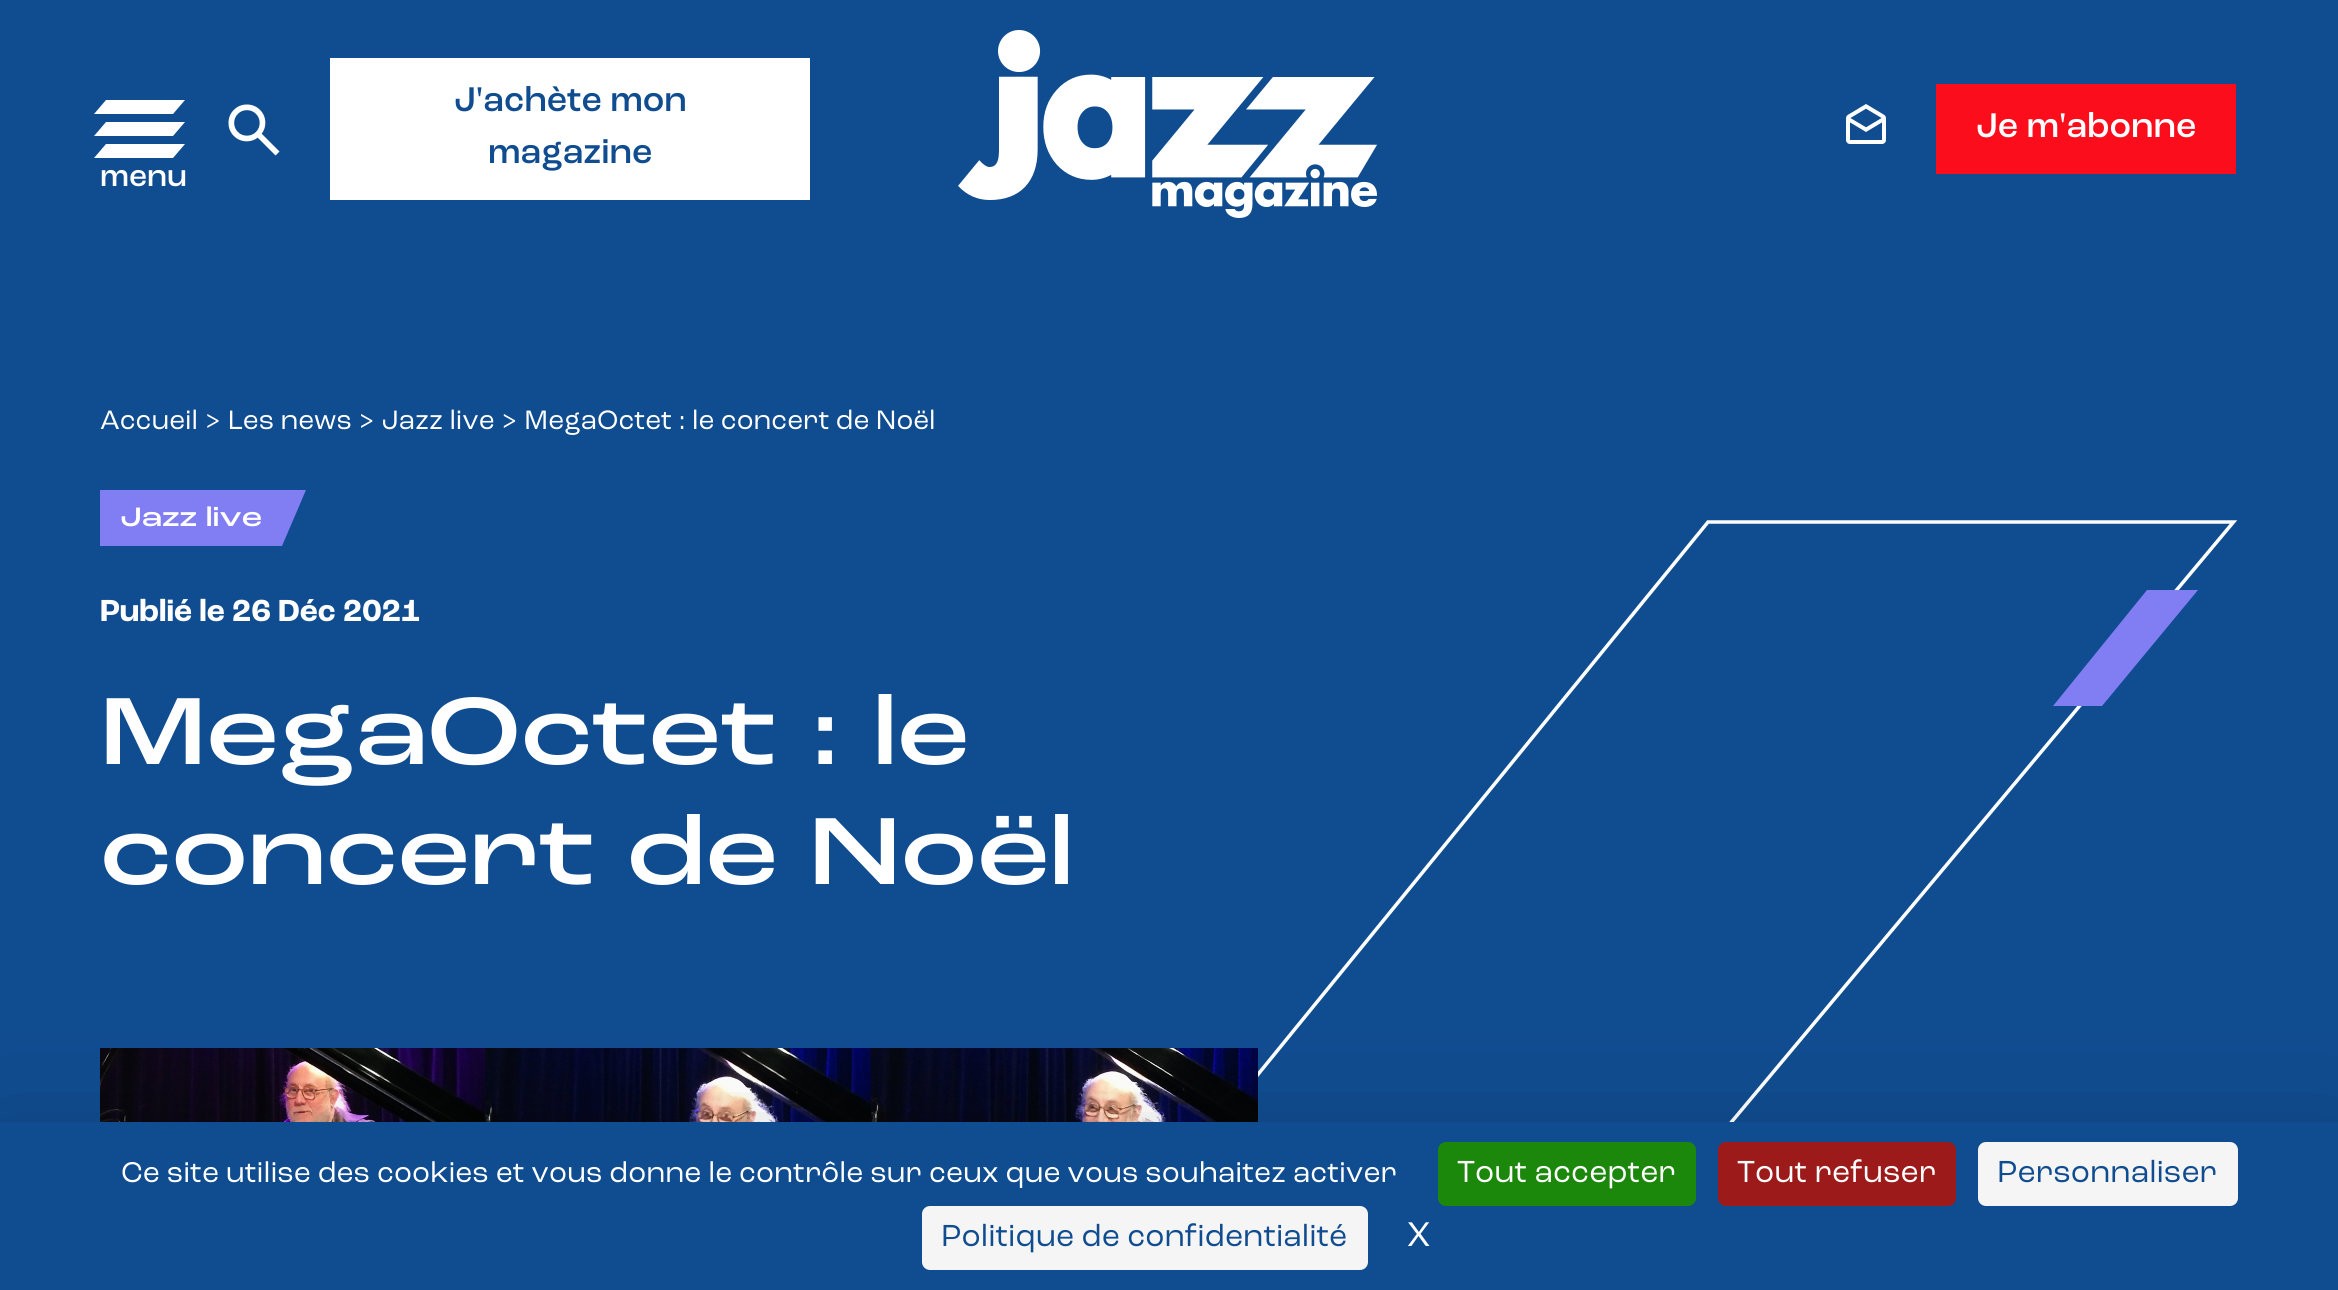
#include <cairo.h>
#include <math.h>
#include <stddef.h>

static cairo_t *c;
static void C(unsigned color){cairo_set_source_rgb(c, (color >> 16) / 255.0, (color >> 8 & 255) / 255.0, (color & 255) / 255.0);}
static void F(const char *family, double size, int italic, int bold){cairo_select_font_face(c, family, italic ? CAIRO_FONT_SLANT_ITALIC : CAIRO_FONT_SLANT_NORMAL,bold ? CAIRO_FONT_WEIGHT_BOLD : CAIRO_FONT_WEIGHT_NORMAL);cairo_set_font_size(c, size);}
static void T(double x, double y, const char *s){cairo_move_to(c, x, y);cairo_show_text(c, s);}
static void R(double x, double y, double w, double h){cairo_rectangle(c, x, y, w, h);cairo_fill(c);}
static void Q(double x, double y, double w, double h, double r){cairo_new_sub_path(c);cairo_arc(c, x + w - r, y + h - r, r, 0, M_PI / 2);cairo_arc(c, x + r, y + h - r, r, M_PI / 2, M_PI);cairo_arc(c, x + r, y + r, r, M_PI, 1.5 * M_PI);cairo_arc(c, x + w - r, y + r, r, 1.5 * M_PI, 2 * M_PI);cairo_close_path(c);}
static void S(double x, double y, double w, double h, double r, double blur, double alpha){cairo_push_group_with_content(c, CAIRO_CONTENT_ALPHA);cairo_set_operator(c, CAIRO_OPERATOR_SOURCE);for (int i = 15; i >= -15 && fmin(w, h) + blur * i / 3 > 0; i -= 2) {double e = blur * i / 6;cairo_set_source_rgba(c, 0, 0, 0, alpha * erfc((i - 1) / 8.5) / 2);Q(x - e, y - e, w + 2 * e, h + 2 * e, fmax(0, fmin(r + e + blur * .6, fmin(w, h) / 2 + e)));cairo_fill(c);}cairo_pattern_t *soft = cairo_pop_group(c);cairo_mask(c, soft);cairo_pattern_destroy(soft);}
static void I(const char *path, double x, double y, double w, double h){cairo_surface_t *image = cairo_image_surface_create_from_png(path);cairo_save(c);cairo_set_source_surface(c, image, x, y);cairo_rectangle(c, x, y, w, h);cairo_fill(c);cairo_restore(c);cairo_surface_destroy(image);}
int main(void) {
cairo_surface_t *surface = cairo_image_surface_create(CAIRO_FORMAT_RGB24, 2338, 1290);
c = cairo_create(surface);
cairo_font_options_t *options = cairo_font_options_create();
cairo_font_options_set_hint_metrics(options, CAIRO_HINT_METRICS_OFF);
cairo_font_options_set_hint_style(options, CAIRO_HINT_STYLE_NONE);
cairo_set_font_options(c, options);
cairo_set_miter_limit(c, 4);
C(0x104c90);
cairo_paint(c);
I("1.png",228,104,52,52);
C(0xffffff);
R(330,58,480,142);
F("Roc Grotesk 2 Medium",36,0,0);
C(0x104c90);
T(454,111,"J'achète mon");
T(488,163,"magazine");
C(0xffffff);
cairo_new_path(c);
cairo_move_to(c,106,100);
cairo_line_to(c,185,100);
cairo_line_to(c,173,114);
cairo_line_to(c,94,114);
cairo_close_path(c);
cairo_fill(c);
cairo_new_path(c);
cairo_move_to(c,106,122);
cairo_line_to(c,185,122);
cairo_line_to(c,173,136);
cairo_line_to(c,94,136);
cairo_close_path(c);
cairo_fill(c);
cairo_new_path(c);
cairo_move_to(c,106,144);
cairo_line_to(c,185,144);
cairo_line_to(c,173,158);
cairo_line_to(c,94,158);
cairo_close_path(c);
cairo_fill(c);
F("Roc Grotesk 2 Medium",32,0,0);
T(100,186,"menu");
I("2.png",958,30,419,188);
I("3.png",1846,104,40,40);
C(0xfc0d1b);
R(1936,84,300,90);
F("Roc Grotesk 2 Medium",36,0,0);
C(0xffffff);
T(1976,137,"Je m'abonne");
cairo_new_path(c);
cairo_move_to(c,1247,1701);
cairo_line_to(c,2233.5,522);
cairo_line_to(c,1708,522);
cairo_line_to(c,747.5,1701);
cairo_close_path(c);
cairo_set_line_width(c,3.5);
cairo_stroke(c);
C(0x817ef4);
cairo_new_path(c);
cairo_move_to(c,2102,706);
cairo_line_to(c,2198,590);
cairo_line_to(c,2147,590);
cairo_line_to(c,2053,706);
cairo_close_path(c);
cairo_fill(c);
F("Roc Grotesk",28,0,0);
C(0xffffff);
T(100,429,"Accueil > Les news > Jazz live > MegaOctet : le concert de Noël");
C(0x817ef4);
R(100,490,182,56);
F("Roc Grotesk Medium",28,0,0);
C(0xffffff);
T(120,526,"Jazz live");
C(0x817ef4);
cairo_new_path(c);
cairo_move_to(c,282,490);
cairo_line_to(c,306,490);
cairo_line_to(c,282,546);
cairo_close_path(c);
cairo_fill(c);
F("Roc Grotesk",32,0,1);
C(0xffffff);
T(100,621,"Publié le 26 Déc 2021");
F("Roc Grotesk Medium",100,0,0);
T(100,764,"MegaOctet : le");
T(100,884,"concert de Noël");
I("4.png",100,1048,1158,74);
C(0x000000);
S(0,1162,2338,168,0,60,.25);
C(0x104c90);
R(0,1122,2338,168);
F("Roc Grotesk",30,0,0);
C(0xffffff);
T(121,1182,"Ce site utilise des cookies et vous donne le contrôle sur ceux que vous souhaitez activer");
C(0x1b870b);
Q(1438,1142,258,64,8);
cairo_fill(c);
F("Roc Grotesk",32,0,0);
C(0xffffff);
T(1457,1182,"Tout accepter");
C(0x9c1a1a);
Q(1718,1142,238,64,8);
cairo_fill(c);
C(0xffffff);
T(1737,1182,"Tout refuser");
C(0xf5f5f5);
Q(1978,1142,260,64,8);
cairo_fill(c);
C(0x104c90);
T(1997,1182,"Personnaliser");
C(0xf5f5f5);
Q(922,1206,446,64,8);
cairo_fill(c);
C(0x104c90);
T(941,1246,"Politique de confidentialité");
F("Roc Grotesk",36,0,0);
C(0xffffff);
T(1407,1246,"X");
cairo_surface_write_to_png(surface, "o.png");
cairo_font_options_destroy(options);
cairo_destroy(c);
cairo_surface_destroy(surface);
return 0;
}
